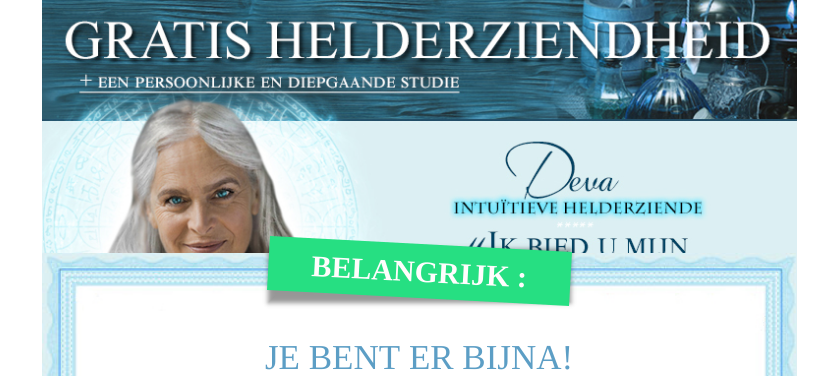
#include <cairo.h>
#include <math.h>
#include <stddef.h>

static cairo_t *c;
static void C(unsigned color){cairo_set_source_rgb(c, (color >> 16) / 255.0, (color >> 8 & 255) / 255.0, (color & 255) / 255.0);}
static void F(const char *family, double size, int italic, int bold){cairo_select_font_face(c, family, italic ? CAIRO_FONT_SLANT_ITALIC : CAIRO_FONT_SLANT_NORMAL,bold ? CAIRO_FONT_WEIGHT_BOLD : CAIRO_FONT_WEIGHT_NORMAL);cairo_set_font_size(c, size);}
static void T(double x, double y, const char *s){cairo_move_to(c, x, y);cairo_show_text(c, s);}
static void R(double x, double y, double w, double h){cairo_rectangle(c, x, y, w, h);cairo_fill(c);}
static void Q(double x, double y, double w, double h, double r){cairo_new_sub_path(c);cairo_arc(c, x + w - r, y + h - r, r, 0, M_PI / 2);cairo_arc(c, x + r, y + h - r, r, M_PI / 2, M_PI);cairo_arc(c, x + r, y + r, r, M_PI, 1.5 * M_PI);cairo_arc(c, x + w - r, y + r, r, 1.5 * M_PI, 2 * M_PI);cairo_close_path(c);}
static void S(double x, double y, double w, double h, double r, double blur, double alpha){cairo_push_group_with_content(c, CAIRO_CONTENT_ALPHA);cairo_set_operator(c, CAIRO_OPERATOR_SOURCE);for (int i = 15; i >= -15 && fmin(w, h) + blur * i / 3 > 0; i -= 2) {double e = blur * i / 6;cairo_set_source_rgba(c, 0, 0, 0, alpha * erfc((i - 1) / 8.5) / 2);Q(x - e, y - e, w + 2 * e, h + 2 * e, fmax(0, fmin(r + e + blur * .6, fmin(w, h) / 2 + e)));cairo_fill(c);}cairo_pattern_t *soft = cairo_pop_group(c);cairo_mask(c, soft);cairo_pattern_destroy(soft);}
static void I(const char *path, double x, double y, double w, double h){cairo_surface_t *image = cairo_image_surface_create_from_png(path);cairo_save(c);cairo_set_source_surface(c, image, x, y);cairo_rectangle(c, x, y, w, h);cairo_fill(c);cairo_restore(c);cairo_surface_destroy(image);}
int main(void) {
cairo_surface_t *surface = cairo_image_surface_create(CAIRO_FORMAT_RGB24, 839, 376);
c = cairo_create(surface);
cairo_font_options_t *options = cairo_font_options_create();
cairo_font_options_set_hint_metrics(options, CAIRO_HINT_METRICS_OFF);
cairo_font_options_set_hint_style(options, CAIRO_HINT_STYLE_NONE);
cairo_set_font_options(c, options);
cairo_set_miter_limit(c, 4);
C(0xffffff);
cairo_paint(c);
C(0xdceff3);
R(796,359,1,17);
I("1.png",42,0,755,359);
I("2.png",42,253,754,123);
C(0x000000);
S(268,249,303,54,0,2.5,.41);
C(0x26df82);
cairo_new_path(c);
cairo_move_to(c,270,236);
cairo_line_to(c,572,252);
cairo_line_to(c,569,306);
cairo_line_to(c,267,290);
cairo_close_path(c);
cairo_fill(c);
F("Liberation Serif",30,0,1);
C(0xfffdfd);
cairo_save(c);
cairo_translate(c,311,276);
cairo_rotate(c,3 * M_PI / 180);
T(0,0,"BELANGRIJK :");
cairo_restore(c);
F("Liberation Serif",35,0,0);
C(0x5c9ec5);
T(265,369,"JE BENT ER BIJNA!");
cairo_surface_write_to_png(surface, "o.png");
cairo_font_options_destroy(options);
cairo_destroy(c);
cairo_surface_destroy(surface);
return 0;
}
